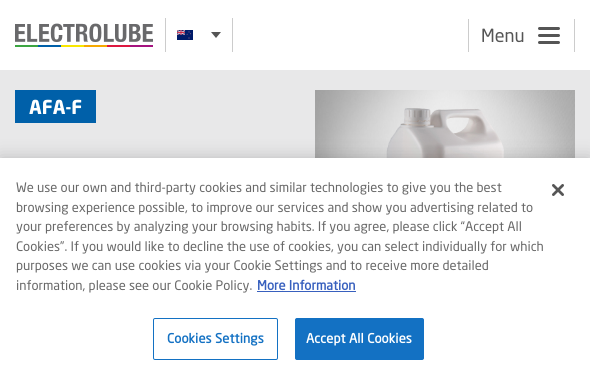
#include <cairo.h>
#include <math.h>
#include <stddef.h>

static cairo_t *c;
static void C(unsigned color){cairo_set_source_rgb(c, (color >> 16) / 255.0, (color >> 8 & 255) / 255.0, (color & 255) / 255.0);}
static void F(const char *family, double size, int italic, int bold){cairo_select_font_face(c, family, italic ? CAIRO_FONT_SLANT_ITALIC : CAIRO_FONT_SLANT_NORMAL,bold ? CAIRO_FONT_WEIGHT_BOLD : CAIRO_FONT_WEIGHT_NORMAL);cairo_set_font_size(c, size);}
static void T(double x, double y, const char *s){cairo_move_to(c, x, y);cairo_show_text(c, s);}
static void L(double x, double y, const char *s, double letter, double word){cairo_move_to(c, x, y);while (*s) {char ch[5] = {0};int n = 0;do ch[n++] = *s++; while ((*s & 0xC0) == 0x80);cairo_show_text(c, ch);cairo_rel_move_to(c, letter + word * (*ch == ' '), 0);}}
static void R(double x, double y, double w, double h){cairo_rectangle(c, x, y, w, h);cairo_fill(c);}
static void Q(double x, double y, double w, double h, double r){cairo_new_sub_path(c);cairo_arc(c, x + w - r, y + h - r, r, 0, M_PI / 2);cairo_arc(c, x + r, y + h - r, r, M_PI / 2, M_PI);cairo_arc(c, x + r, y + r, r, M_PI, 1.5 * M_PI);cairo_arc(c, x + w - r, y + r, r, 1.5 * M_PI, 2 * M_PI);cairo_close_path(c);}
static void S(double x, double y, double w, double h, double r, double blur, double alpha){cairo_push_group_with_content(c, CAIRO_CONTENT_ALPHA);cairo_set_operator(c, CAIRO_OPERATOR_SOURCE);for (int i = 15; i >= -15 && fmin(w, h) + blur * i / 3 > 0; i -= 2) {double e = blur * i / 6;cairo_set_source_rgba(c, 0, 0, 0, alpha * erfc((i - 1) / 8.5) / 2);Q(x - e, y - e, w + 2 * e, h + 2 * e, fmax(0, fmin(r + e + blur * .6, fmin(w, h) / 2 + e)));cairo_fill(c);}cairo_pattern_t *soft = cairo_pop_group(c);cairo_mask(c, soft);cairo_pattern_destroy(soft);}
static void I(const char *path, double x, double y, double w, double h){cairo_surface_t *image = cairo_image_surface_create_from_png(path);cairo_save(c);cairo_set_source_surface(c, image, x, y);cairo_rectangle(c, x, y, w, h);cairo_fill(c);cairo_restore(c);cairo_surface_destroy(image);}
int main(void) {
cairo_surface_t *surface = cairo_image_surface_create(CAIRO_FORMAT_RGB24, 590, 376);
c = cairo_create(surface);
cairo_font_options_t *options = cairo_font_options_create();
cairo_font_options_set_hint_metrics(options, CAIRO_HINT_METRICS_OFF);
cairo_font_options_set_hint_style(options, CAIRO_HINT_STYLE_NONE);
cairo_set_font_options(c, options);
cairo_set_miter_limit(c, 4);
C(0xffffff);
cairo_paint(c);
I("1.png",15,23,138,24);
C(0xcccccc);
R(232,18,1,34);
R(165,18,1,34);
I("2.png",177,30,16,10);
C(0x555555);
cairo_new_path(c);
cairo_move_to(c,211,32);
cairo_line_to(c,221,32);
cairo_line_to(c,216,38);
cairo_close_path(c);
cairo_fill(c);
C(0xcccccc);
R(574,19,1,33);
R(468,19,1,33);
F("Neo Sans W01",18,0,0);
C(0x555555);
T(481,42,"Menu");
Q(538,27,22,3,1.5);
cairo_fill(c);
Q(538,34,22,3,1.5);
cairo_fill(c);
Q(538,41,22,3,1.5);
cairo_fill(c);
C(0xe8e8e9);
R(0,70,590,88);
C(0x0060a9);
R(15,90,81,33);
F("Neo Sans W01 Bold",19,0,1);
C(0xffffff);
T(29,114,"AFA-F");
I("3.png",315,90,260,68);
I("4.png",386,108,118,50);
C(0x000000);
S(0,158,590,218,0,9,.2);
C(0xffffff);
R(0,158,590,218);
F("Neo Sans W01",13,0,0);
C(0x696969);
T(16,192,"We use our own and third-party cookies and similar technologies to give you the best");
T(16,212,"browsing experience possible, to improve our services and show you advertising related to");
T(16,231,"your preferences by analyzing your browsing habits. If you agree, please click “Accept All");
T(16,251,"Cookies”. If you would like to decline the use of cookies, you can select individually for which");
T(16,270,"purposes we can use cookies via your Cookie Settings and to receive more detailed");
T(16,290,"information, please see our Cookie Policy.");
F("Neo Sans W01",13,0,1);
C(0x3860be);
T(257,290,"More Information");
R(257,291,99,1);
Q(153.5,318.5,124,41,1.5);
C(0x1371c3);
cairo_set_line_width(c,1);
cairo_stroke(c);
L(167,343,"Cookies Settings",.1,0);
Q(295.5,318.5,128,41,1.5);
cairo_fill_preserve(c);
cairo_stroke(c);
C(0xffffff);
L(306,343,"Accept All Cookies",.1,0);
I("5.png",552,184,12,12);
cairo_surface_write_to_png(surface, "o.png");
cairo_font_options_destroy(options);
cairo_destroy(c);
cairo_surface_destroy(surface);
return 0;
}
